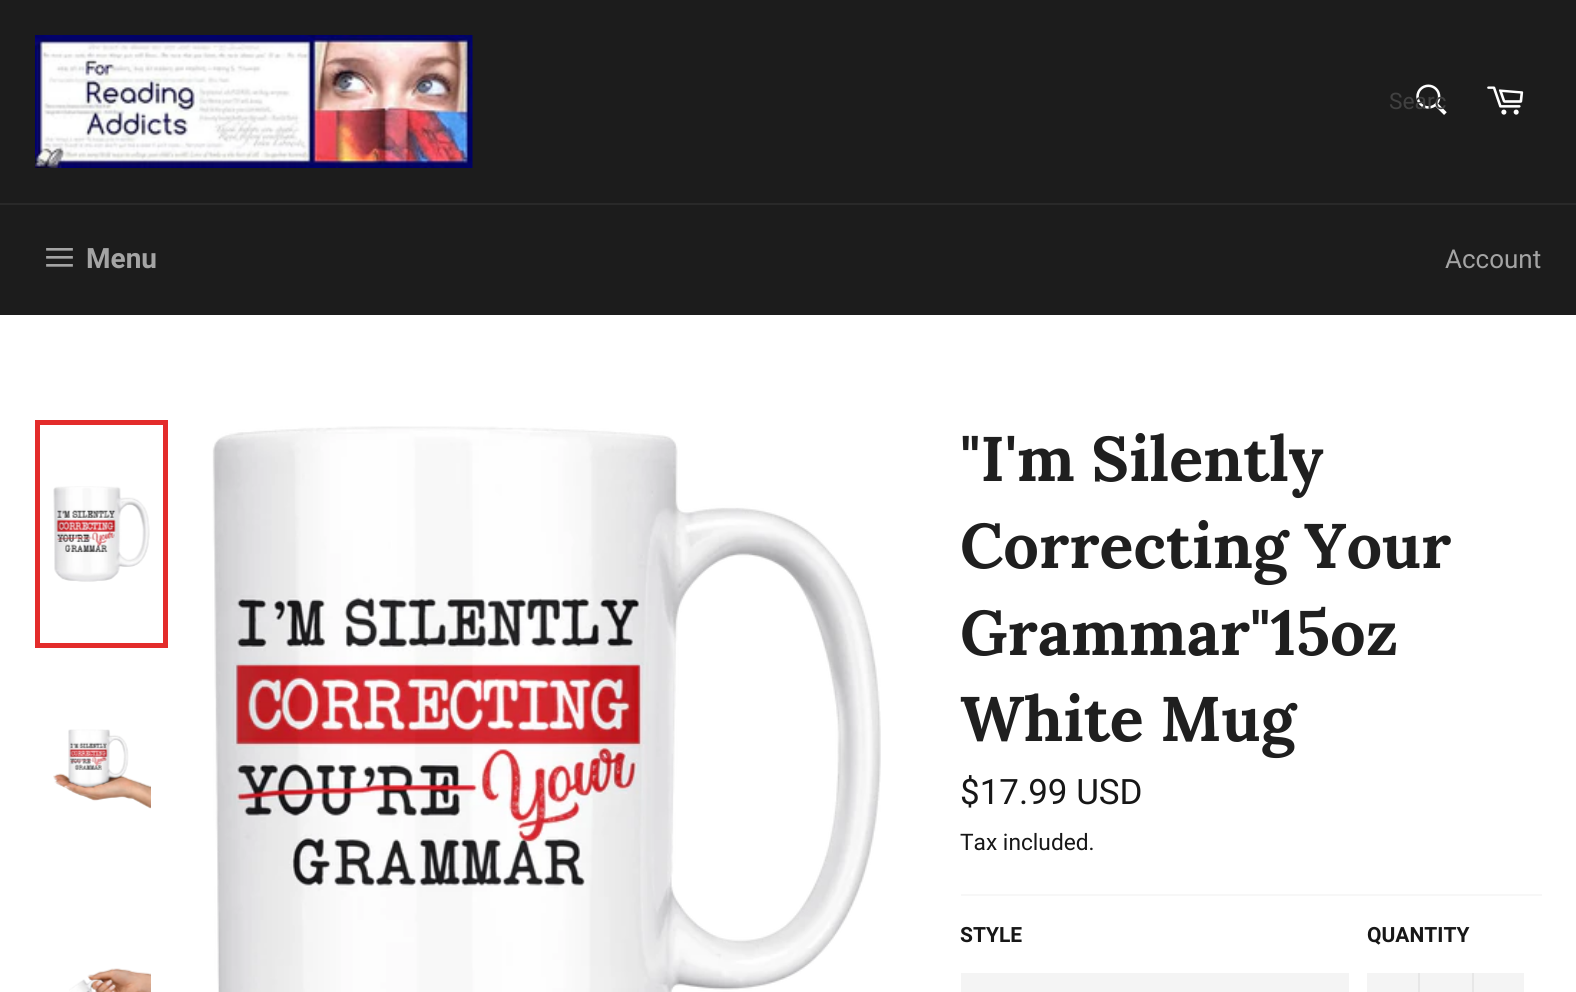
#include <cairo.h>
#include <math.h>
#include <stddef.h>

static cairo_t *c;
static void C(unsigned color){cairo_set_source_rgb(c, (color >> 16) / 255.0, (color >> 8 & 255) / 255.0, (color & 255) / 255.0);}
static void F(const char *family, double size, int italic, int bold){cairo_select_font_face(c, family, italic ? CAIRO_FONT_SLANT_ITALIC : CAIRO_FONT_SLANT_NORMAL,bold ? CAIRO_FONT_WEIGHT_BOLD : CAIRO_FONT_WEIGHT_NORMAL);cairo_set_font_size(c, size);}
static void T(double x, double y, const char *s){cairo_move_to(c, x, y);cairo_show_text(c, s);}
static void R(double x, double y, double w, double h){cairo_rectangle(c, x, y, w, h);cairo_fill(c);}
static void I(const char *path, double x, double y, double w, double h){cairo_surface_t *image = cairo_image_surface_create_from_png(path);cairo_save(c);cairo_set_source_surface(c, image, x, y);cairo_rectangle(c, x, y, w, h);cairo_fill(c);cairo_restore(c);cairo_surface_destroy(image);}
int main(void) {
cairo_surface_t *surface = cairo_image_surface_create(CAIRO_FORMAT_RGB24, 1576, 992);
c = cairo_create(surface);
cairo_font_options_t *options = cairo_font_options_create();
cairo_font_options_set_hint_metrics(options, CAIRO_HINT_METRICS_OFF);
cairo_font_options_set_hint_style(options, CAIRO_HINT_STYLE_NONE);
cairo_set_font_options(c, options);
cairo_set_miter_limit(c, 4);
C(0x1c1c1c);
cairo_paint(c);
I("1.png",35,35,438,133);
I("2.png",1416,84,31,31);
F("Roboto",22.75,0,0);
C(0x414141);
T(1389,109,"Searc");
I("3.png",1487,86,37,29);
C(0x292929);
R(0,203,1576,2);
I("4.png",46,248,27,19);
F("Roboto",28,0,1);
C(0xa4a4a4);
T(86,268,"Menu");
F("Roboto",26,0,0);
T(1445,268,"Account");
C(0xffffff);
R(0,315,1576,677);
I("5.png",53,486,97,96);
cairo_rectangle(c,37.5,422.5,128,223);
C(0xe32c2b);
cairo_set_line_width(c,5);
cairo_stroke(c);
I("6.png",53,729,98,80);
I("7.png",69,968,82,24);
I("8.png",212,426,669,566);
F("Lora",63,0,1);
C(0x1f1f1f);
T(960,481,"\"I'm Silently");
T(960,568,"Correcting Your");
T(960,655,"Grammar\"15oz");
T(960,741,"White Mug");
F("Roboto",35,0,0);
C(0x171717);
T(960,804,"$17.99 USD");
F("Roboto",22.75,0,0);
T(960,850,"Tax included.");
C(0xf7f7f7);
R(961,894,581,2);
F("Roboto",21,0,1);
C(0x171717);
T(960,942,"STYLE");
C(0xf4f4f4);
R(961,973,388,19);
C(0x171717);
T(1367,942,"QUANTITY");
C(0xf4f4f4);
R(1367,973,157,19);
C(0xe7e7e7);
R(1418,973,2,19);
R(1472,973,2,19);
cairo_surface_write_to_png(surface, "o.png");
cairo_font_options_destroy(options);
cairo_destroy(c);
cairo_surface_destroy(surface);
return 0;
}
